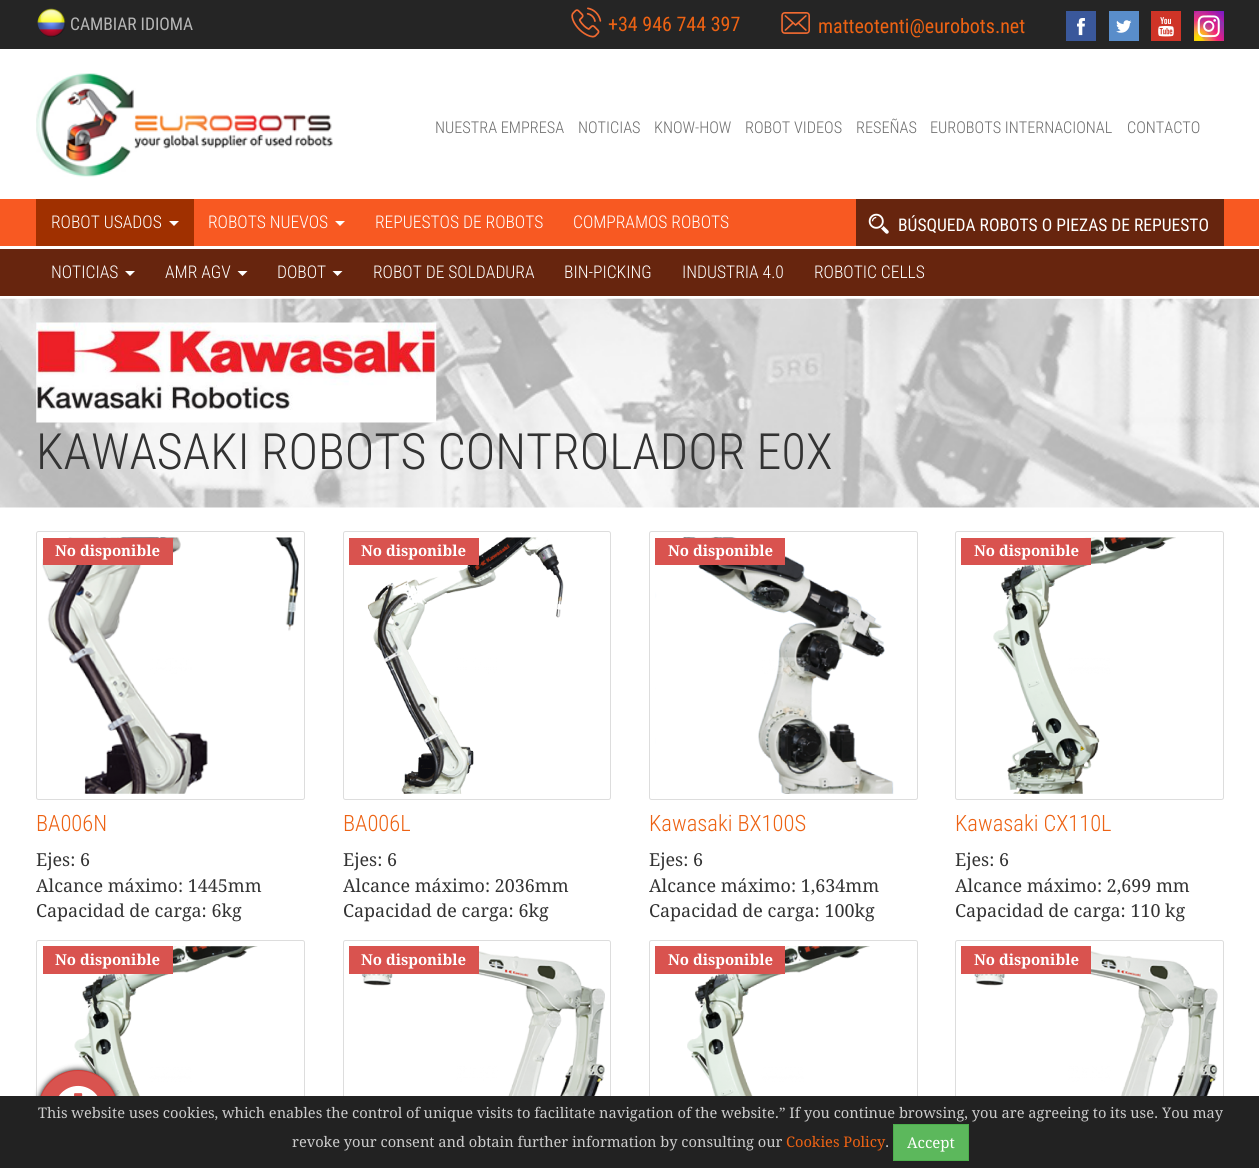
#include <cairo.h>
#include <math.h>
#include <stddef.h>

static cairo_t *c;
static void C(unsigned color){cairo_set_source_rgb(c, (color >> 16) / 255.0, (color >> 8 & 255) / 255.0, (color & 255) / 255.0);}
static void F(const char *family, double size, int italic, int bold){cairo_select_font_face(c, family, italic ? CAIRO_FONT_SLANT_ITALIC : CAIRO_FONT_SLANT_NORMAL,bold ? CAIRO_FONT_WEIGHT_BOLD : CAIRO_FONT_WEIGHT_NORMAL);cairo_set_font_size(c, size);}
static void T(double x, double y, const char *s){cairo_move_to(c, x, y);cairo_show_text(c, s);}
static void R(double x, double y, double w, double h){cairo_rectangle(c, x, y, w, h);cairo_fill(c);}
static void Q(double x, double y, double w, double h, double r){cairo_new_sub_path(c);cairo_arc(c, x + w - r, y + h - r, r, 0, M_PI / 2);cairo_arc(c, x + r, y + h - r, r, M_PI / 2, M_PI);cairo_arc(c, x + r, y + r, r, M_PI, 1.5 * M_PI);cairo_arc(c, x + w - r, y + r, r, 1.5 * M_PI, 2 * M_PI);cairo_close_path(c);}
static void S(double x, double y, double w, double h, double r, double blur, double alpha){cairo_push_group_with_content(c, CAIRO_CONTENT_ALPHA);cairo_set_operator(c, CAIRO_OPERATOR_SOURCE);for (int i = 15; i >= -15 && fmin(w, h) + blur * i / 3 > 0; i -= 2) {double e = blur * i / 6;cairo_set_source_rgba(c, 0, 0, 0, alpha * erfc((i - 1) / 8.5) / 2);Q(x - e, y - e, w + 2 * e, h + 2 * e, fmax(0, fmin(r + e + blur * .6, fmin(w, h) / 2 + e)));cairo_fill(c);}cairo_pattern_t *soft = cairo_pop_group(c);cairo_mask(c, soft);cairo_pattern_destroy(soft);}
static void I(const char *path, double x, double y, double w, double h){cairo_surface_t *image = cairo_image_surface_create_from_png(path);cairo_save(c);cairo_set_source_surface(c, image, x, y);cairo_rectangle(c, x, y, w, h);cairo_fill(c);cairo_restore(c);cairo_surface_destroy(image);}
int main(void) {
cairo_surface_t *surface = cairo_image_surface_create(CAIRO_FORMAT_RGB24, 1259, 1168);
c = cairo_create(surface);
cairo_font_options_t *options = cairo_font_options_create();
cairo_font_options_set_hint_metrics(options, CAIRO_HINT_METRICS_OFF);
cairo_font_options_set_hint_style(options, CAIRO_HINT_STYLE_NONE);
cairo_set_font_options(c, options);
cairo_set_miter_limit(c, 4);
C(0xffffff);
cairo_paint(c);
C(0x252525);
R(0,0,1259,49);
I("1.png",37,8,29,29);
F("Roboto Condensed",17.5,0,0);
C(0xb6b6b6);
T(70,30,"CAMBIAR IDIOMA");
I("2.png",571,7,31,31);
F("Roboto Condensed",20,0,0);
C(0xed6213);
T(608,31,"+34 946 744 397");
I("3.png",781,12,29,22);
T(818,33,"matteotenti@eurobots.net");
C(0xffffff);
R(1077,18,8,18);
I("4.png",1066,11,30,30);
R(1116,20,16,13);
I("5.png",1109,11,30,30);
R(1158,17,16,20);
I("6.png",1151,11,30,30);
I("7.png",1194,11,30,30);
I("8.png",36,73,297,104);
F("Roboto Condensed Light",16.25,0,0);
C(0x6c6c6c);
T(435,133,"NUESTRA EMPRESA");
T(578,133,"NOTICIAS");
T(654,133,"KNOW-HOW");
T(745,133,"ROBOT VIDEOS");
T(856,133,"RESEÑAS");
T(930,133,"EUROBOTS INTERNACIONAL");
T(1127,133,"CONTACTO");
C(0xf85922);
R(0,199,1259,47);
C(0xa03000);
R(36,199,158,47);
F("Roboto Condensed Light",17.5,0,0);
C(0xffffff);
T(51,228,"ROBOT USADOS");
cairo_new_path(c);
cairo_move_to(c,169,221);
cairo_line_to(c,179,221);
cairo_line_to(c,174,226);
cairo_close_path(c);
cairo_fill(c);
T(208,228,"ROBOTS NUEVOS");
cairo_new_path(c);
cairo_move_to(c,335,221);
cairo_line_to(c,345,221);
cairo_line_to(c,340,226);
cairo_close_path(c);
cairo_fill(c);
T(375,228,"REPUESTOS DE ROBOTS");
T(573,228,"COMPRAMOS ROBOTS");
C(0x67250e);
R(856,199,368,47);
I("9.png",868,213,21,21);
F("Roboto Condensed",17.5,0,0);
C(0xffffff);
T(898,231,"BÚSQUEDA ROBOTS O PIEZAS DE REPUESTO");
C(0x67250e);
R(0,249,1259,47);
F("Roboto Condensed Light",17.5,0,0);
C(0xffffff);
T(51,278,"NOTICIAS");
cairo_new_path(c);
cairo_move_to(c,125,271);
cairo_line_to(c,135,271);
cairo_line_to(c,130,276);
cairo_close_path(c);
cairo_fill(c);
T(165,278,"AMR AGV");
cairo_new_path(c);
cairo_move_to(c,237.5,271);
cairo_line_to(c,247.5,271);
cairo_line_to(c,242.5,276);
cairo_close_path(c);
cairo_fill(c);
T(277,278,"DOBOT");
cairo_new_path(c);
cairo_move_to(c,332.5,271);
cairo_line_to(c,342.5,271);
cairo_line_to(c,337.5,276);
cairo_close_path(c);
cairo_fill(c);
T(373,278,"ROBOT DE SOLDADURA");
T(564,278,"BIN-PICKING");
T(682,278,"INDUSTRIA 4.0");
T(814,278,"ROBOTIC CELLS");
I("10.png",0,298,1259,210);
I("11.png",36,322,401,101);
F("Roboto Condensed Light",50,0,0);
C(0x333333);
T(36,469,"KAWASAKI ROBOTS CONTROLADOR E0X");
Q(36.5,531.5,268,268,2);
C(0xdddddd);
cairo_set_line_width(c,1);
cairo_stroke(c);
I("12.png",42,537,257,257);
C(0xd9534f);
R(43,538,130,27);
F("Droid Serif",15,0,1);
C(0xffffff);
T(55,556,"No disponible");
F("Roboto Condensed Light",22.5,0,0);
C(0xed6213);
T(36,831,"BA006N");
F("Droid Serif",17.9,0,0);
C(0x333333);
T(36,866,"Ejes: 6");
T(36,892,"Alcance máximo: 1445mm");
T(36,917,"Capacidad de carga: 6kg");
Q(343.5,531.5,267,268,2);
C(0xdddddd);
cairo_stroke(c);
I("13.png",367,537,197,257);
C(0xd9534f);
R(349,538,130,27);
F("Droid Serif",15,0,1);
C(0xffffff);
T(361,556,"No disponible");
F("Roboto Condensed Light",22.5,0,0);
C(0xed6213);
T(343,831,"BA006L");
F("Droid Serif",17.9,0,0);
C(0x333333);
T(343,866,"Ejes: 6");
T(343,892,"Alcance máximo: 2036mm");
T(343,917,"Capacidad de carga: 6kg");
Q(649.5,531.5,268,268,2);
C(0xdddddd);
cairo_stroke(c);
I("14.png",655,537,239,257);
C(0xd9534f);
R(655,538,130,27);
F("Droid Serif",15,0,1);
C(0xffffff);
T(668,556,"No disponible");
F("Roboto Condensed Light",22.5,0,0);
C(0xed6213);
T(649,831,"Kawasaki BX100S");
F("Droid Serif",17.9,0,0);
C(0x333333);
T(649,866,"Ejes: 6");
T(649,892,"Alcance máximo: 1,634mm");
T(649,917,"Capacidad de carga: 100kg");
Q(955.5,531.5,268,268,2);
C(0xdddddd);
cairo_stroke(c);
I("15.png",993,537,183,257);
C(0xd9534f);
R(961,538,130,27);
F("Droid Serif",15,0,1);
C(0xffffff);
T(974,556,"No disponible");
F("Roboto Condensed Light",22.5,0,0);
C(0xed6213);
T(955,831,"Kawasaki CX110L");
F("Droid Serif",17.9,0,0);
C(0x333333);
T(955,866,"Ejes: 6");
T(955,892,"Alcance máximo: 2,699 mm");
T(955,917,"Capacidad de carga: 110 kg");
Q(36.5,940.5,268,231,2);
C(0xdddddd);
cairo_stroke(c);
I("16.png",74,946,184,150);
C(0xd9534f);
R(43,946,130,28);
F("Droid Serif",15,0,1);
C(0xffffff);
T(55,965,"No disponible");
Q(343.5,940.5,267,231,2);
C(0xdddddd);
cairo_stroke(c);
I("17.png",361,950,244,146);
C(0xd9534f);
R(349,946,130,28);
C(0xffffff);
T(361,965,"No disponible");
Q(649.5,940.5,268,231,2);
C(0xdddddd);
cairo_stroke(c);
I("18.png",687,946,183,150);
C(0xd9534f);
R(655,946,130,28);
C(0xffffff);
T(668,965,"No disponible");
Q(955.5,940.5,268,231,2);
C(0xdddddd);
cairo_stroke(c);
I("19.png",974,950,244,146);
C(0xd9534f);
R(961,946,130,28);
C(0xffffff);
T(974,965,"No disponible");
C(0x000000);
S(38,1070,80,80,40,3,1);
C(0xd9534f);
cairo_arc(c,78,1110,39.5,0,2 * M_PI);
cairo_fill_preserve(c);
C(0xd43f3a);
cairo_stroke(c);
I("20.png",59,1085,39,11);
C(0x222222);
R(0,1096,1259,72);
F("Droid Serif",14.62,0,0);
C(0xcccccc);
T(38,1118,"This website uses cookies, which enables the control of unique visits to facilitate navigation of the website.” If you continue browsing, you are agreeing to its use. You may");
T(292,1147,"revoke your consent and obtain further information by consulting our");
C(0xed6213);
T(786,1147,"Cookies Policy");
C(0xcccccc);
T(885,1147,".");
C(0x5cb85c);
cairo_rectangle(c,893.5,1124.5,75,36);
cairo_fill_preserve(c);
C(0x4cae4c);
cairo_stroke(c);
F("Droid Serif",15,0,0);
C(0xffffff);
T(907,1148,"Accept");
cairo_surface_write_to_png(surface, "o.png");
cairo_font_options_destroy(options);
cairo_destroy(c);
cairo_surface_destroy(surface);
return 0;
}
